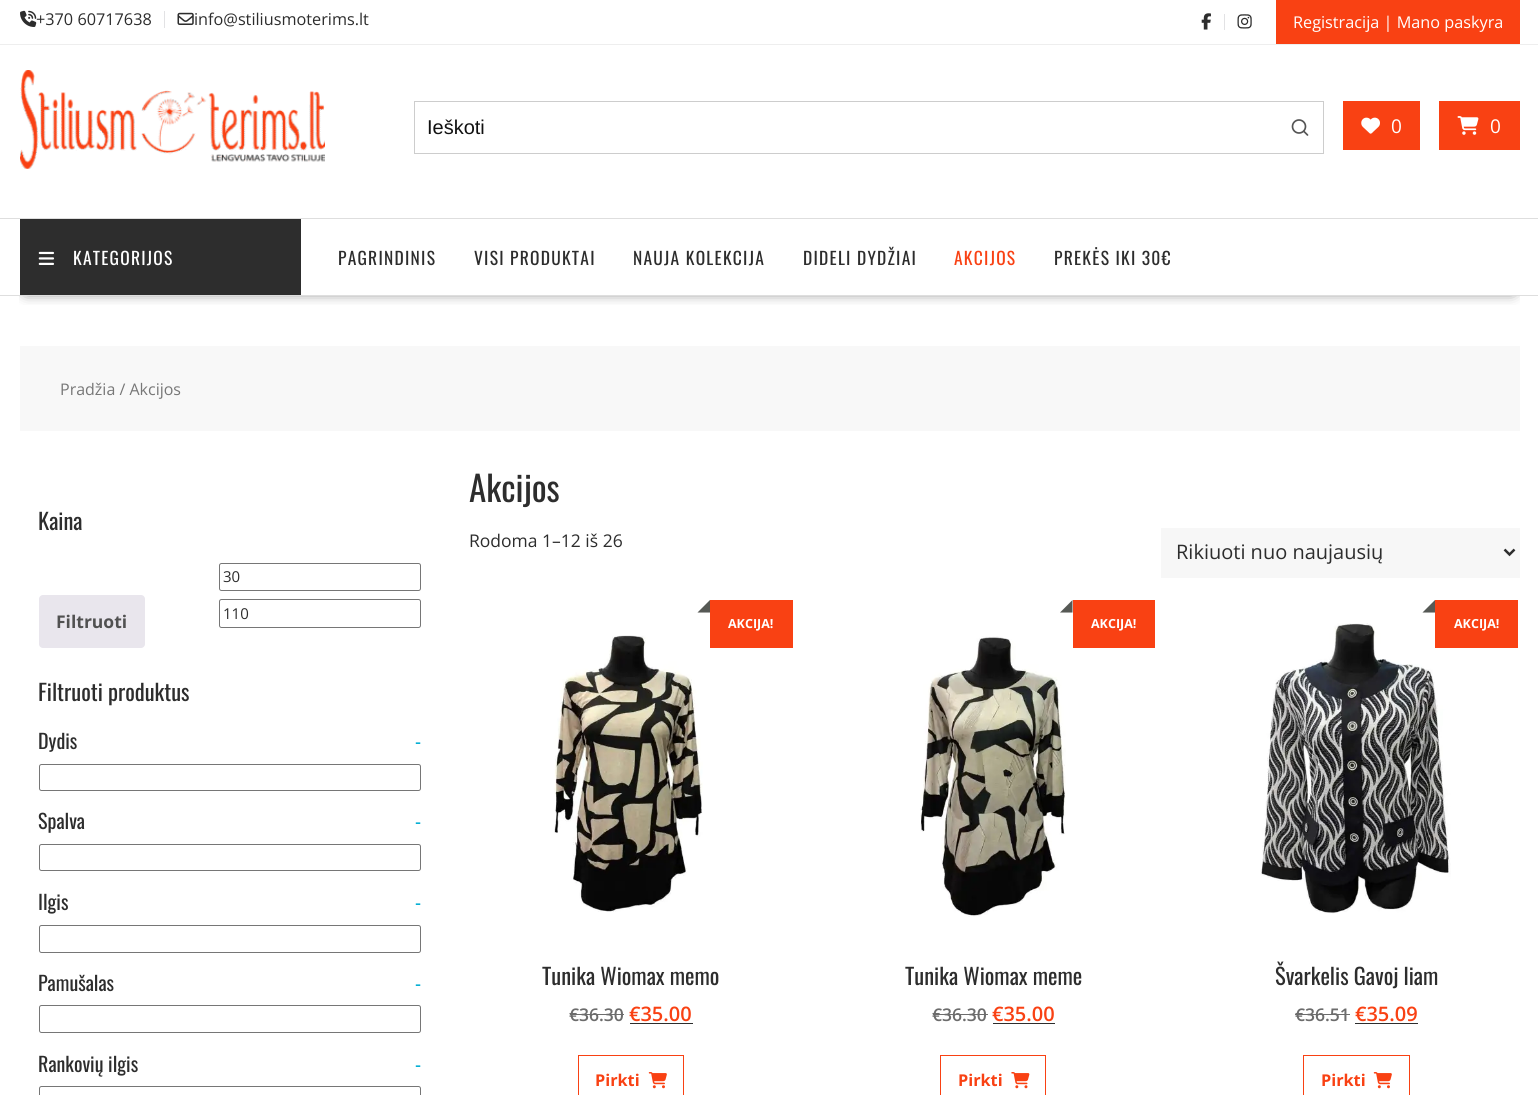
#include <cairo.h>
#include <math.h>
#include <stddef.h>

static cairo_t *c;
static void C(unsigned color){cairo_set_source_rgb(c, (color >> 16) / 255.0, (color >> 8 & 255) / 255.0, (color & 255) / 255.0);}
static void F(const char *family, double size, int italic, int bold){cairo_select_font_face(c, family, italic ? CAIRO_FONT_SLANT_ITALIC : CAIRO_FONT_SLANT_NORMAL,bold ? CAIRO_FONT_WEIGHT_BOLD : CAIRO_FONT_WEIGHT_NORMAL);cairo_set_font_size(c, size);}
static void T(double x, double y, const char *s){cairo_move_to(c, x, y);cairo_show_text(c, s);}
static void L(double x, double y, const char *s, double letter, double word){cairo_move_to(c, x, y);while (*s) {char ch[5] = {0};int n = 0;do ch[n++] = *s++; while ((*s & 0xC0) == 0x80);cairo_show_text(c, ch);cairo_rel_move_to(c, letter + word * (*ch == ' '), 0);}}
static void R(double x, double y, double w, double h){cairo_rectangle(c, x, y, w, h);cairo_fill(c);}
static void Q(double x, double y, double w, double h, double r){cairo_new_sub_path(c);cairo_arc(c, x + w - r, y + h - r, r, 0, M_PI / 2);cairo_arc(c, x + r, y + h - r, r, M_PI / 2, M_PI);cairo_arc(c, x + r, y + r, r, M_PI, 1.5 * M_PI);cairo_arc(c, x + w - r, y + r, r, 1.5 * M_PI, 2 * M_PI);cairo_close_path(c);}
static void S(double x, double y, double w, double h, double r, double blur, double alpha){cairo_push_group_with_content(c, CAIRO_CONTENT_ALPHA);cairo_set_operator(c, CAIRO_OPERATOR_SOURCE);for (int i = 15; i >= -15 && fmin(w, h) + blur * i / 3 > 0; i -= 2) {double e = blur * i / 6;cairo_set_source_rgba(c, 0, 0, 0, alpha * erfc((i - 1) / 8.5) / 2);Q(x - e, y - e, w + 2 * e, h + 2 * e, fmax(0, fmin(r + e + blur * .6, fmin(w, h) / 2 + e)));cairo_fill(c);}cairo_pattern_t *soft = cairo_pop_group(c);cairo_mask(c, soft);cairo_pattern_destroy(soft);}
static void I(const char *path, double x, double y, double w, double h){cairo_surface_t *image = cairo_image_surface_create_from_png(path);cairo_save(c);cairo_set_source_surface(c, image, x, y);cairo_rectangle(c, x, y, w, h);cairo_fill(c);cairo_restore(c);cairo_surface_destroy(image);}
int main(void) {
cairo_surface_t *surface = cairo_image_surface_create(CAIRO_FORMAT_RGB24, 1538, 1095);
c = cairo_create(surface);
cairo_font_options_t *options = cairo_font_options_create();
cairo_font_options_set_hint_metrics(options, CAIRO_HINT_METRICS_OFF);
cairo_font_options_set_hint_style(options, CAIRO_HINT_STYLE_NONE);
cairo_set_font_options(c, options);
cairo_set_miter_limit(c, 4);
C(0xffffff);
cairo_paint(c);
C(0xeeeeee);
R(0,44,1538,1);
I("1.png",20,10,17,17);
F("Open Sans",16.25,0,0);
C(0x2d2d2d);
T(36,25,"+370 60717638");
C(0xe2e2e4);
R(164,11,1,17);
I("2.png",177,12,17,13);
C(0x2d2d2d);
T(194,25,"info@stiliusmoterims.lt");
I("3.png",1201,13,10,17);
C(0xe2e2e4);
R(1224,14,1,16);
I("4.png",1237,14,15,15);
C(0xf94113);
R(1276,0,244,44);
C(0xffffff);
T(1293,28,"Registracija | Mano paskyra");
I("5.png",20,70,305,99);
cairo_rectangle(c,414.5,101.5,909,52);
C(0xcdcdcd);
cairo_set_line_width(c,1);
cairo_stroke(c);
F("Liberation Sans",20,0,0);
C(0x111111);
T(427,134,"Ieškoti");
cairo_new_path(c);
cairo_arc(c,1299,126.5,6.5,0,2 * M_PI);
C(0x555555);
cairo_set_line_width(c,1.7);
cairo_stroke(c);
cairo_new_path(c);
cairo_move_to(c,1307.5,135);
cairo_line_to(c,1304,131.5);
cairo_set_line_cap(c,CAIRO_LINE_CAP_ROUND);
cairo_set_line_join(c,CAIRO_LINE_JOIN_ROUND);
cairo_stroke(c);
C(0xf94113);
R(1343,101,77,49);
I("6.png",1361,117,19,17);
F("Open Sans",19,0,0);
C(0xffffff);
T(1391,133,"0");
C(0xf94113);
R(1439,101,81,49);
I("7.png",1457,116,22,19);
C(0xffffff);
T(1490,133,"0");
cairo_save(c);
cairo_rectangle(c,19,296,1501,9);
cairo_clip(c);
C(0x000000);
S(26,265,1487,26,0,7,.75);
cairo_restore(c);
C(0xdedede);
R(0,218,1538,1);
R(0,295,1538,1);
C(0x2d2d2d);
R(20,219,281,76);
I("8.png",38,251,17,14);
F("Oswald",17.5,0,0);
C(0xffffff);
L(73,265,"KATEGORIJOS",1.25,0);
C(0x2d2d2d);
L(338,265,"PAGRINDINIS",1.25,0);
L(474,265,"VISI PRODUKTAI",1.25,0);
L(633,265,"NAUJA KOLEKCIJA",1.25,0);
L(803,265,"DIDELI DYDŽIAI",1.25,0);
C(0xf94113);
L(954,265,"AKCIJOS",1.25,0);
C(0x2d2d2d);
L(1054,265,"PREKĖS IKI 30€",1.25,0);
C(0xf8f8f8);
R(20,346,1500,85);
F("Open Sans",16,0,0);
C(0x777777);
T(60,395,"Pradžia / Akcijos");
F("Oswald",22.5,0,0);
C(0x2d2d2d);
T(38,530,"Kaina");
Q(219.5,563.5,201,27,2);
C(0x767676);
cairo_set_line_width(c,1);
cairo_set_line_cap(c,CAIRO_LINE_CAP_BUTT);
cairo_set_line_join(c,CAIRO_LINE_JOIN_MITER);
cairo_stroke(c);
F("Open Sans",15,0,0);
C(0x2d2d2d);
T(223,582,"30");
C(0xe9e6ed);
Q(39,595,106,53,4);
cairo_fill(c);
F("Open Sans",17.5,0,1);
C(0x515151);
T(56,628,"Filtruoti");
Q(219.5,599.5,201,28,2);
C(0x767676);
cairo_stroke(c);
F("Open Sans",15,0,0);
C(0x2d2d2d);
T(223,619,"110");
F("Oswald",22.5,0,0);
T(38,701,"Filtruoti produktus");
F("Oswald",20,0,0);
T(38,749,"Dydis");
C(0x07afd4);
T(415,749,"-");
Q(39.5,764.5,381,26,2);
C(0x767676);
cairo_stroke(c);
C(0x2d2d2d);
T(38,829,"Spalva");
C(0x07afd4);
T(415,829,"-");
Q(39.5,844.5,381,26,2);
C(0x767676);
cairo_stroke(c);
C(0x2d2d2d);
T(38,910,"Ilgis");
C(0x07afd4);
T(415,910,"-");
Q(39.5,925.5,381,27,2);
C(0x767676);
cairo_stroke(c);
C(0x2d2d2d);
T(38,991,"Pamušalas");
C(0x07afd4);
T(415,991,"-");
Q(39.5,1005.5,381,27,2);
C(0x767676);
cairo_stroke(c);
C(0x2d2d2d);
T(38,1072,"Rankovių ilgis");
C(0x07afd4);
T(415,1072,"-");
Q(39.5,1086.5,381,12,2);
C(0x767676);
cairo_stroke(c);
F("Oswald",35,0,0);
C(0x2d2d2d);
T(469,502,"Akcijos");
F("Open Sans",17.5,0,0);
T(469,547,"Rodoma 1–12 iš 26");
C(0xf7f7f7);
R(1161,528,359,50);
cairo_new_path(c);
cairo_move_to(c,1504.5,549.5);
cairo_line_to(c,1509.5,554.5);
cairo_line_to(c,1514.5,549.5);
C(0x2d2d2d);
cairo_set_line_width(c,2.5);
cairo_stroke(c);
F("Open Sans",20,0,0);
T(1176,559,"Rikiuoti nuo naujausių");
C(0xf94113);
R(710,600,83,48);
C(0x565955);
cairo_new_path(c);
cairo_move_to(c,710,600);
cairo_line_to(c,710,612.5);
cairo_line_to(c,697.5,612.5);
cairo_close_path(c);
cairo_fill(c);
F("Open Sans",12.5,0,1);
C(0xffffff);
T(728,628,"AKCIJA!");
I("9.png",554,635,149,277);
F("Oswald",22.5,0,0);
C(0x2d2d2d);
T(542,985,"Tunika Wiomax memo");
F("Open Sans SemiBold",17.5,0,0);
C(0x6c6c6c);
T(569,1021,"€36.30");
R(570,1014,54,1);
F("Open Sans SemiBold",20,0,0);
C(0xf94113);
T(629,1021,"€35.00");
C(0x2d2d2d);
R(630,1023,63,1);
cairo_rectangle(c,578.5,1055.5,105,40);
C(0xf94113);
cairo_set_line_width(c,1);
cairo_stroke(c);
F("Open Sans",16.25,0,1);
T(595,1086,"Pirkti");
I("10.png",648,1072,19,17);
R(1073,600,82,48);
C(0x565955);
cairo_new_path(c);
cairo_move_to(c,1072.5,600);
cairo_line_to(c,1072.5,612.5);
cairo_line_to(c,1060,612.5);
cairo_close_path(c);
cairo_fill(c);
F("Open Sans",12.5,0,1);
C(0xffffff);
T(1091,628,"AKCIJA!");
I("11.png",920,636,146,281);
F("Oswald",22.5,0,0);
C(0x2d2d2d);
T(905,985,"Tunika Wiomax meme");
F("Open Sans SemiBold",17.5,0,0);
C(0x6c6c6c);
T(932,1021,"€");
R(933,1014,10,1);
T(942,1021,"36.30");
R(943,1014,45,1);
F("Open Sans SemiBold",20,0,0);
C(0xf94113);
T(992,1021,"€35.00");
C(0x2d2d2d);
R(993,1023,62,1);
cairo_rectangle(c,940.5,1055.5,105,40);
C(0xf94113);
cairo_stroke(c);
F("Open Sans",16.25,0,1);
T(958,1086,"Pirkti");
I("12.png",1011,1072,19,17);
I("13.png",1260,623,191,291);
R(1435,600,83,48);
C(0x565955);
cairo_new_path(c);
cairo_move_to(c,1435,600);
cairo_line_to(c,1435,612.5);
cairo_line_to(c,1422.5,612.5);
cairo_close_path(c);
cairo_fill(c);
F("Open Sans",12.5,0,1);
C(0xffffff);
T(1454,628,"AKCIJA!");
F("Oswald",22.5,0,0);
C(0x2d2d2d);
T(1275,985,"Švarkelis Gavoj liam");
F("Open Sans SemiBold",17.5,0,0);
C(0x6c6c6c);
T(1295,1021,"€36.51");
R(1295,1014,55,1);
F("Open Sans SemiBold",20,0,0);
C(0xf94113);
T(1355,1021,"€35.09");
C(0x2d2d2d);
R(1355,1023,63,1);
cairo_rectangle(c,1303.5,1055.5,106,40);
C(0xf94113);
cairo_stroke(c);
F("Open Sans",16.25,0,1);
T(1321,1086,"Pirkti");
I("10.png",1373,1072,19,17);
cairo_surface_write_to_png(surface, "o.png");
cairo_font_options_destroy(options);
cairo_destroy(c);
cairo_surface_destroy(surface);
return 0;
}
